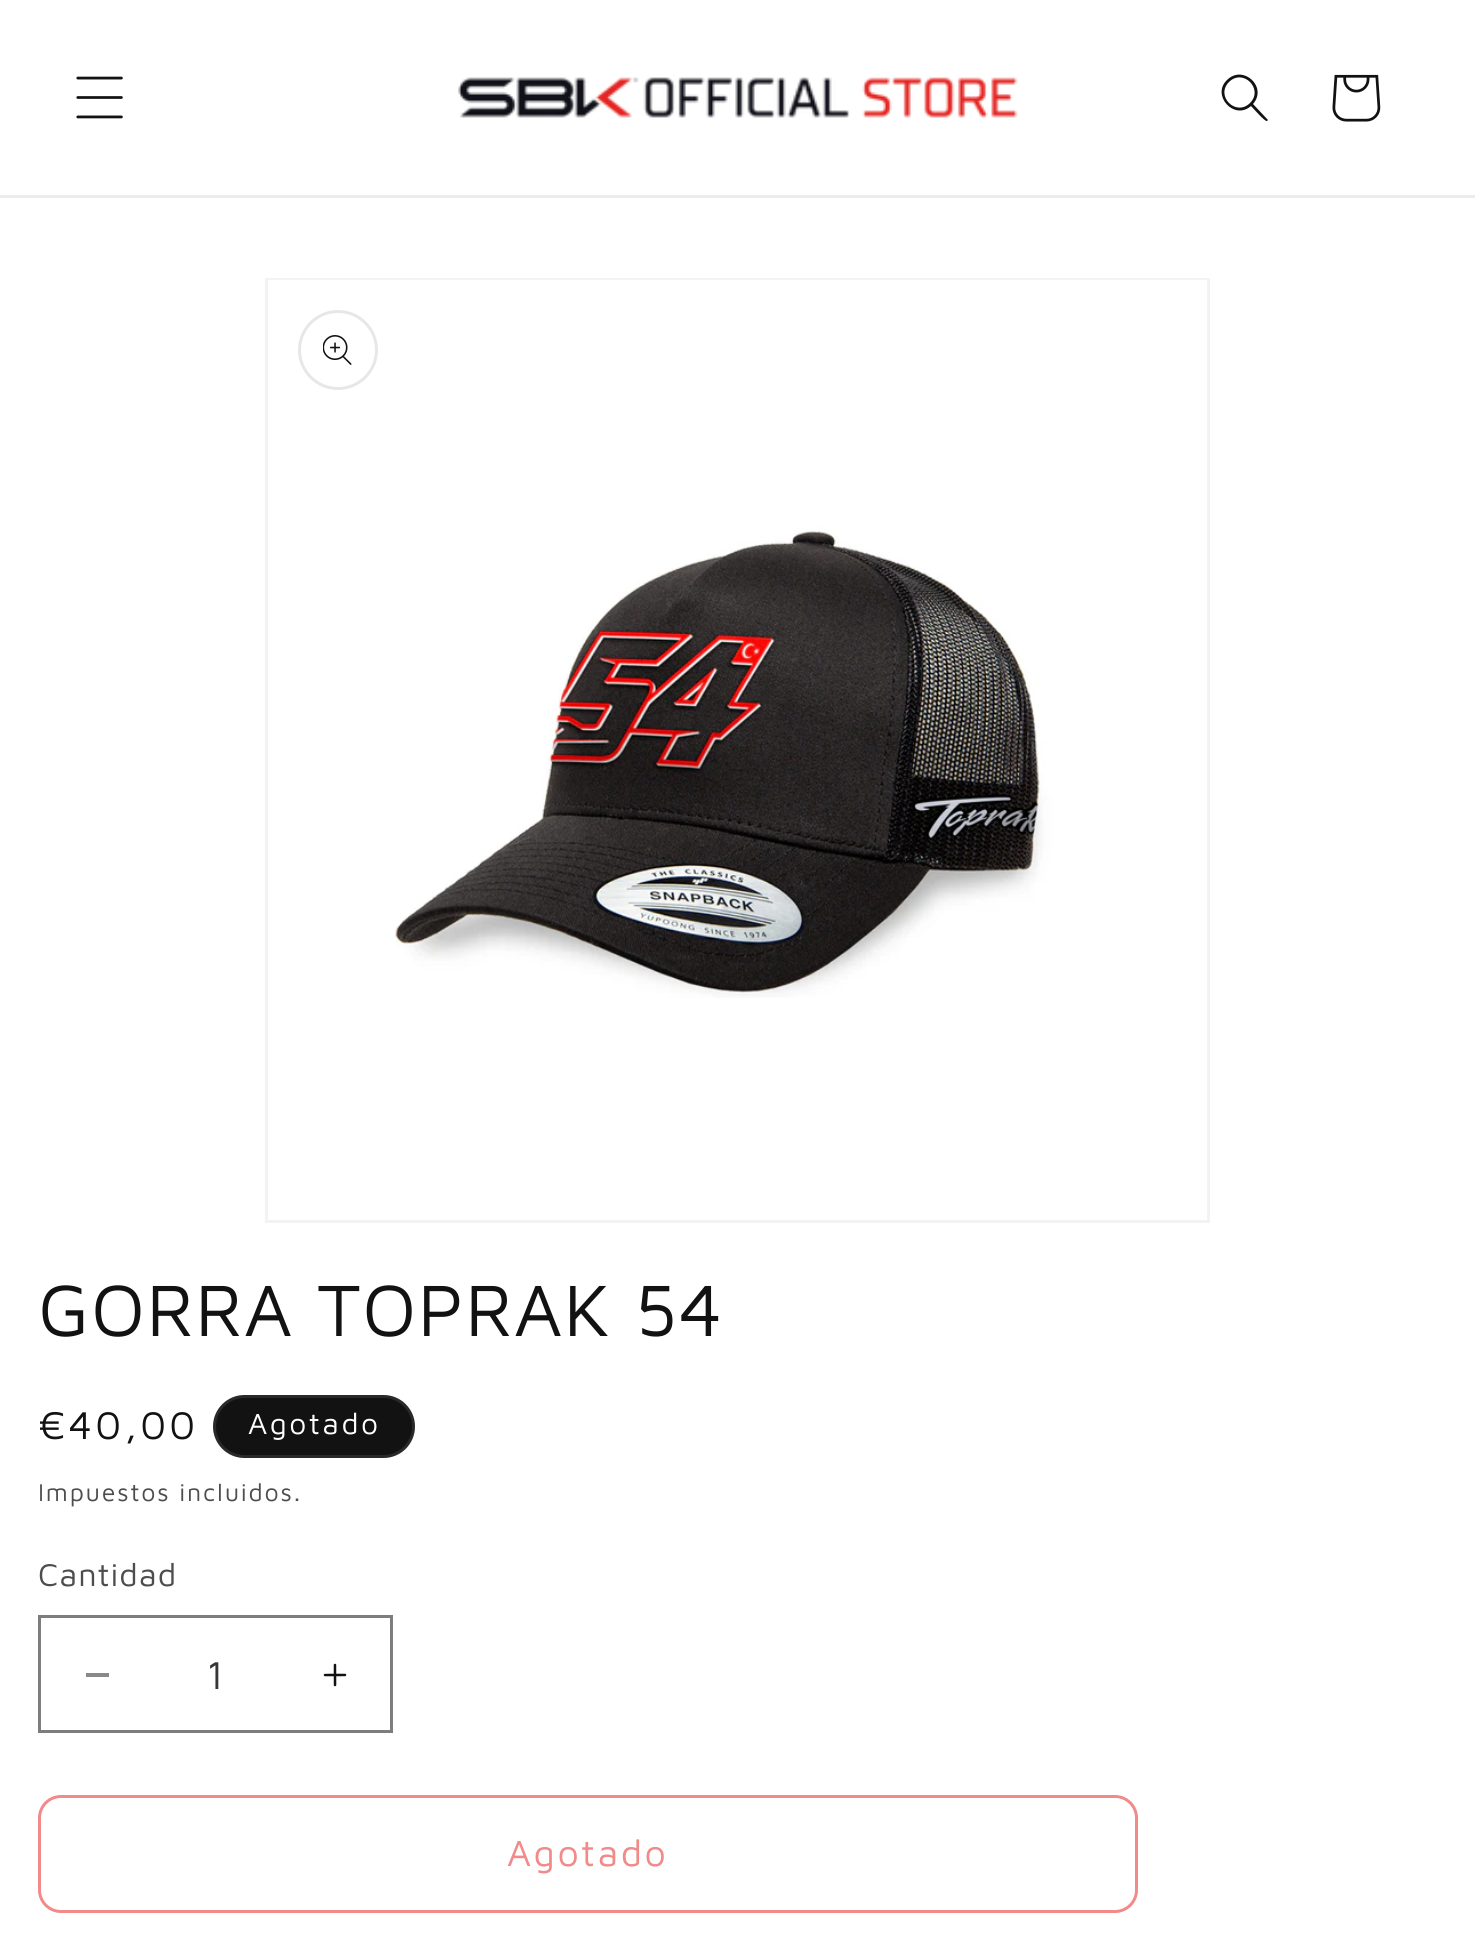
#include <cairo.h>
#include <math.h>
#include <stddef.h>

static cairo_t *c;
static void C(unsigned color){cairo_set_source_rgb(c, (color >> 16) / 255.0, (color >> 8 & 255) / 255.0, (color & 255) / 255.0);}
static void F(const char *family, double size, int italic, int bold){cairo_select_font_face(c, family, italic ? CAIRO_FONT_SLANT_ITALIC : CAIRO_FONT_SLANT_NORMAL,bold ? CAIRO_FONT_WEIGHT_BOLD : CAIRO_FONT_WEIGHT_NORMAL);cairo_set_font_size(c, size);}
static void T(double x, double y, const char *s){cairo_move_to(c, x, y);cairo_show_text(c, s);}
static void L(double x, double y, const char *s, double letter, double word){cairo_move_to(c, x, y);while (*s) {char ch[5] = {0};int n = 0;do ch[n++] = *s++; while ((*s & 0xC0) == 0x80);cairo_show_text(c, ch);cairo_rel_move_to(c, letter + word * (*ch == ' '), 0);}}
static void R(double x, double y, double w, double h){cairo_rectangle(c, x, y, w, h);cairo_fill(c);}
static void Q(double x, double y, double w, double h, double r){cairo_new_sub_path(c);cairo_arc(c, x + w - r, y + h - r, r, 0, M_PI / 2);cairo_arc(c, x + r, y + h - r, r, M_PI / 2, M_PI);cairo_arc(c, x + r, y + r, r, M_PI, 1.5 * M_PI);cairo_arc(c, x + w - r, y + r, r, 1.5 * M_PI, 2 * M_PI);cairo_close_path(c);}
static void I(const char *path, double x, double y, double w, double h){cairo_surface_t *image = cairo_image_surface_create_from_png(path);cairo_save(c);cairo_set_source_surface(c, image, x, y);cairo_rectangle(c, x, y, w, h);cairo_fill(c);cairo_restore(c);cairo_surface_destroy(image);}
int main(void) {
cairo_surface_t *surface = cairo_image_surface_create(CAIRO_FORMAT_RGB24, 1475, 1939);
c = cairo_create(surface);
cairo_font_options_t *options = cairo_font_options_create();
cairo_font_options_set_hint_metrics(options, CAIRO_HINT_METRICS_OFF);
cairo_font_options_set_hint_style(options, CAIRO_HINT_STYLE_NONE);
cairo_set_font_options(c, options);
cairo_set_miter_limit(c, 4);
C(0xffffff);
cairo_paint(c);
C(0xececec);
R(0,195,1475,3);
I("1.png",76,76,47,43);
I("2.png",458,77,560,41);
C(0x121212);
cairo_set_fill_rule(c,CAIRO_FILL_RULE_EVEN_ODD);
cairo_new_path(c);
cairo_move_to(c,1250,103);
cairo_curve_to(c,1236,117,1215,96,1229,82);
cairo_curve_to(c,1243,68,1264,89,1250,103);
cairo_close_path(c);
cairo_move_to(c,1251,106);
cairo_curve_to(c,1234,121,1211,95,1227,80);
cairo_curve_to(c,1243,64,1268,87,1253,104);
cairo_line_to(c,1268,120);
cairo_line_to(c,1267,121);
cairo_curve_to(c,1265,122,1253,108,1251,106);
cairo_close_path(c);
cairo_fill(c);
I("3.png",1332,74,49,48);
cairo_rectangle(c,266.5,279.5,942,942);
C(0xf3f3f3);
cairo_set_line_width(c,3);
cairo_stroke(c);
I("4.png",268,280,939,718);
cairo_arc(c,338,350,38.5,0,2 * M_PI);
C(0xe7e7e7);
cairo_stroke(c);
I("5.png",323,335,29,30);
F("Maven Pro",75,0,0);
C(0x121212);
L(38,1336,"GORRA TOPRAK 54",1.5,0);
F("Maven Pro",40,0,0);
L(38,1439,"€40,00",3.25,0);
Q(213,1395,202,63,31.5);
cairo_fill(c);
Q(214.5,1396.5,199,60,30);
cairo_set_source_rgba(c,1,1,1,0.1);
cairo_stroke(c);
F("Maven Pro",30,0,0);
C(0xffffff);
L(248,1434,"Agotado",2.5,0);
F("Maven Pro",25,0,0);
C(0x4d4d4d);
L(38,1501,"Impuestos incluidos.",1.75,0);
F("Maven Pro",32.5,0,0);
L(38,1586,"Cantidad",1,0);
C(0x898989);
R(86,1673,23,4);
I("6.png",323,1663,24,24);
cairo_rectangle(c,39.5,1616.5,352,115);
C(0x7d7d7d);
cairo_stroke(c);
F("Maven Pro",40,0,0);
C(0x363636);
T(206,1689,"1");
Q(39.5,1796.5,1097,115,21.5);
C(0xf18a89);
cairo_stroke(c);
F("Maven Pro",37.5,0,0);
L(507,1866,"Agotado",2.5,0);
cairo_surface_write_to_png(surface, "o.png");
cairo_font_options_destroy(options);
cairo_destroy(c);
cairo_surface_destroy(surface);
return 0;
}
